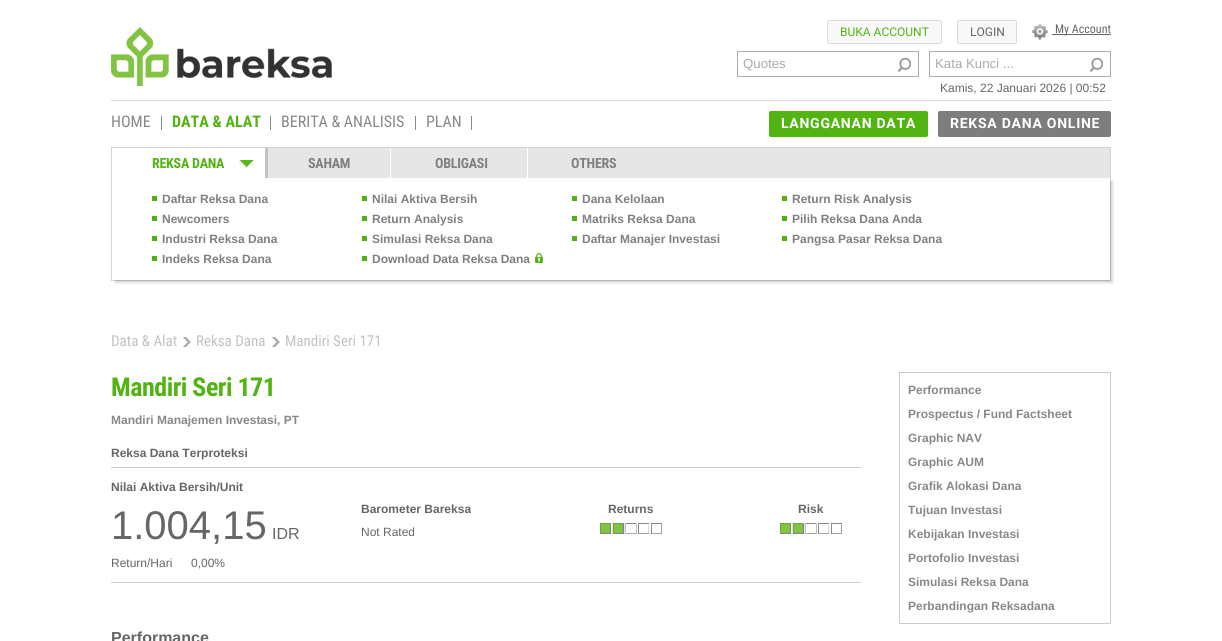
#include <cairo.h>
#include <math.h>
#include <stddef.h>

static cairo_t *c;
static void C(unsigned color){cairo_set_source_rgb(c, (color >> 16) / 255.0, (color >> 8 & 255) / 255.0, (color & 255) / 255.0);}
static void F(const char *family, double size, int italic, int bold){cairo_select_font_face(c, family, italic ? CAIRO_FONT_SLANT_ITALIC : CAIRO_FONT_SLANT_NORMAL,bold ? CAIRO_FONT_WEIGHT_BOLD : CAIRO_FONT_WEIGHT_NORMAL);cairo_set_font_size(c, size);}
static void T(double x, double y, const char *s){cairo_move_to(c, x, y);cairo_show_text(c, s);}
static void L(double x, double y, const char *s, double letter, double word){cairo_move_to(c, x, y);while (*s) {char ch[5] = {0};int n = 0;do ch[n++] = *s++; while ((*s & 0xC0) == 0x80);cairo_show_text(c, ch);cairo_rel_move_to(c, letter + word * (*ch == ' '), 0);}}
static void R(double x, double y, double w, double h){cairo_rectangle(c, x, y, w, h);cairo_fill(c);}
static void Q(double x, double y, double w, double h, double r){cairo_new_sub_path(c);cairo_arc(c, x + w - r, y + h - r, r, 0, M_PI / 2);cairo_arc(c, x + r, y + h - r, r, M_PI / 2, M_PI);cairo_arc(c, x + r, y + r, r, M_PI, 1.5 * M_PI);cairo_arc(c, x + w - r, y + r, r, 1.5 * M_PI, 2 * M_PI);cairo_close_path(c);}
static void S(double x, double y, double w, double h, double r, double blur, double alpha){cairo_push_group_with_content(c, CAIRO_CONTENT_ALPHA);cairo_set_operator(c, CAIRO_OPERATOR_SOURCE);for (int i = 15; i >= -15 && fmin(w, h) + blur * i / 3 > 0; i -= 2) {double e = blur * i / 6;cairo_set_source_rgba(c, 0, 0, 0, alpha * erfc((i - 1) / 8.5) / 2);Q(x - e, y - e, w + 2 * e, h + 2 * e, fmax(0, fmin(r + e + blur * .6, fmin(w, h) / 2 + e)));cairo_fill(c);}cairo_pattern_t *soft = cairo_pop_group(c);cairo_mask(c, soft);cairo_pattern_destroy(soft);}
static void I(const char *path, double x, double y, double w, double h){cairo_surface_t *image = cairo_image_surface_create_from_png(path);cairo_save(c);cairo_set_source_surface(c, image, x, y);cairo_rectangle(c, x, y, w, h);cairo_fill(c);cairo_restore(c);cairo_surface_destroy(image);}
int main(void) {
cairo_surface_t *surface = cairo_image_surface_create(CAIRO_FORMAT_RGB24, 1222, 641);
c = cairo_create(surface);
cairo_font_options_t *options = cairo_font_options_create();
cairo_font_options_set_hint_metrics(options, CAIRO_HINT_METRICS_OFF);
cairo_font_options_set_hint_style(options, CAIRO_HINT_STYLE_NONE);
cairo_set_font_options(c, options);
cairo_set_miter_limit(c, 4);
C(0xffffff);
cairo_paint(c);
C(0xdad9d8);
R(111,100,1000,1);
I("1.png",111,27,221,59);
C(0xf8f8f8);
Q(827.5,20.5,114,23,1.5);
cairo_fill_preserve(c);
C(0xdcdcdc);
cairo_set_line_width(c,1);
cairo_stroke(c);
F("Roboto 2",12,0,0);
C(0x52b411);
T(840,36,"BUKA ACCOUNT");
C(0xf8f8f8);
Q(957.5,20.5,59,23,1.5);
cairo_fill_preserve(c);
C(0xdcdcdc);
cairo_stroke(c);
C(0x666666);
T(970,36,"LOGIN");
I("2.png",1032,24,16,16);
R(1052,34,59,1);
F("Roboto",12,0,0);
T(1055,33,"My Account");
cairo_rectangle(c,737.5,51.5,181,25);
C(0xaaaaaa);
cairo_stroke(c);
F("Liberation Sans",13.25,0,0);
T(743,68,"Quotes");
I("3.png",898,58,13,14);
cairo_rectangle(c,929.5,51.5,181,25);
cairo_stroke(c);
T(935,68,"Kata Kunci ...");
I("3.png",1090,58,13,14);
F("Liberation Sans",12,0,0);
C(0x666666);
T(940,92,"Kamis, 22 Januari 2026 | 00:52");
C(0x888888);
R(161,116,1,14);
F("Roboto",16,0,0);
T(111,127,"HOME");
R(270,116,1,14);
F("Roboto",16,0,1);
C(0x52b411);
T(172,127,"DATA & ALAT");
C(0x888888);
R(415,116,1,14);
F("Roboto",16,0,0);
T(281,127,"BERITA & ANALISIS");
R(471,116,1,14);
T(426,127,"PLAN");
C(0x52b411);
Q(769,111,159,26,2);
cairo_fill(c);
F("Roboto 2",14,0,1);
C(0xffffff);
L(781,128,"LANGGANAN DATA",.75,0);
C(0x7d7d7d);
Q(938,111,173,26,2);
cairo_fill(c);
C(0xffffff);
L(950,128,"REKSA DANA ONLINE",.75,0);
C(0xe6e6e6);
R(268,148,842,30);
cairo_rectangle(c,111.5,147.5,999,133);
C(0xd3d3d3);
cairo_stroke(c);
C(0x000000);
S(115,181,998,102,0,1,.15);
C(0xc3c3c3);
R(265,148,3,30);
I("4.png",239,160,15,8);
F("Roboto",14,0,1);
C(0x52b411);
L(152,168,"REKSA DANA",-.25,0);
C(0x808080);
L(308,168,"SAHAM",-.25,0);
C(0xffffff);
R(390,148,1,30);
C(0x808080);
L(435,168,"OBLIGASI",-.25,0);
C(0xffffff);
R(527,148,1,30);
C(0x808080);
L(571,168,"OTHERS",-.25,0);
C(0xffffff);
R(114,180,996,100);
C(0x51b310);
R(152,196,5,5);
F("Liberation Sans",12,0,1);
C(0x808080);
T(162,203,"Daftar Reksa Dana");
C(0x51b310);
R(362,196,5,5);
C(0x808080);
T(372,203,"Nilai Aktiva Bersih");
C(0x51b310);
R(572,196,5,5);
C(0x808080);
T(582,203,"Dana Kelolaan");
C(0x51b310);
R(782,196,5,5);
C(0x808080);
T(792,203,"Return Risk Analysis");
C(0x51b310);
R(152,216,5,5);
C(0x808080);
T(162,223,"Newcomers");
C(0x51b310);
R(362,216,5,5);
C(0x808080);
T(372,223,"Return Analysis");
C(0x51b310);
R(572,216,5,5);
C(0x808080);
T(582,223,"Matriks Reksa Dana");
C(0x51b310);
R(782,216,5,5);
C(0x808080);
T(792,223,"Pilih Reksa Dana Anda");
C(0x51b310);
R(152,236,5,5);
C(0x808080);
T(162,243,"Industri Reksa Dana");
C(0x51b310);
R(362,236,5,5);
C(0x808080);
T(372,243,"Simulasi Reksa Dana");
C(0x51b310);
R(572,236,5,5);
C(0x808080);
T(582,243,"Daftar Manajer Investasi");
C(0x51b310);
R(782,236,5,5);
C(0x808080);
T(792,243,"Pangsa Pasar Reksa Dana");
C(0x51b310);
R(152,256,5,5);
C(0x808080);
T(162,263,"Indeks Reksa Dana");
C(0x51b310);
R(362,256,5,5);
C(0x808080);
T(372,263,"Download Data Reksa Dana");
I("5.png",535,253,8,10);
F("Roboto",15,0,0);
C(0xc2c2c2);
T(111,346,"Data & Alat");
I("6.png",183,337,8,10);
T(196,346,"Reksa Dana");
I("6.png",272,337,8,10);
T(285,346,"Mandiri Seri 171");
F("Roboto",26,0,1);
C(0x52b411);
L(111,396,"Mandiri Seri 171",-.5,0);
F("Liberation Sans",12,0,1);
C(0x888888);
T(111,424,"Mandiri Manajemen Investasi, PT");
C(0x666666);
T(111,457,"Reksa Dana Terproteksi");
C(0xcccccc);
R(111,467,750,1);
R(111,582,750,1);
C(0x666666);
T(111,491,"Nilai Aktiva Bersih/Unit");
T(361,513,"Barometer Bareksa");
F("Liberation Sans",12,0,0);
T(361,536,"Not Rated");
F("Liberation Sans",12,0,1);
T(608,513,"Returns");
I("7.png",600,523,62,11);
I("8.png",600,523,25,11);
T(798,513,"Risk");
I("7.png",780,523,62,11);
I("8.png",780,523,25,11);
F("Liberation Sans",40,0,0);
T(111,539,"1.004,15");
F("Liberation Sans",16,0,0);
T(272,539,"IDR");
F("Liberation Sans",12,0,0);
T(111,567,"Return/Hari");
T(191,567,"0,00%");
cairo_rectangle(c,899.5,372.5,211,251);
C(0xcccccc);
cairo_stroke(c);
F("Liberation Sans",12,0,1);
C(0x888888);
T(908,394,"Performance");
T(908,418,"Prospectus / Fund Factsheet");
T(908,442,"Graphic NAV");
T(908,466,"Graphic AUM");
T(908,490,"Grafik Alokasi Dana");
T(908,514,"Tujuan Investasi");
T(908,538,"Kebijakan Investasi");
T(908,562,"Portofolio Investasi");
T(908,586,"Simulasi Reksa Dana");
T(908,610,"Perbandingan Reksadana");
F("Liberation Sans",16,0,1);
C(0x666666);
T(111,643,"Performance");
cairo_surface_write_to_png(surface, "o.png");
cairo_font_options_destroy(options);
cairo_destroy(c);
cairo_surface_destroy(surface);
return 0;
}
